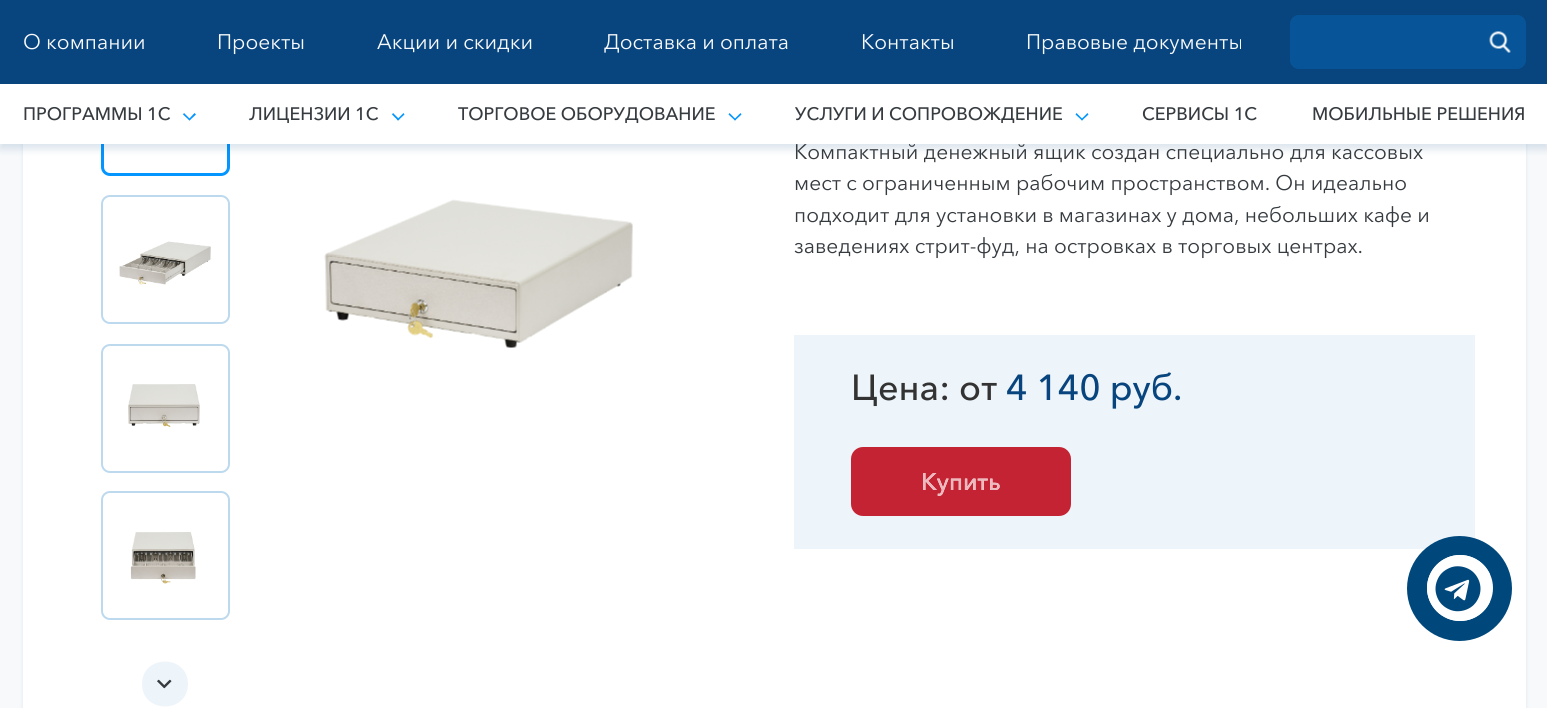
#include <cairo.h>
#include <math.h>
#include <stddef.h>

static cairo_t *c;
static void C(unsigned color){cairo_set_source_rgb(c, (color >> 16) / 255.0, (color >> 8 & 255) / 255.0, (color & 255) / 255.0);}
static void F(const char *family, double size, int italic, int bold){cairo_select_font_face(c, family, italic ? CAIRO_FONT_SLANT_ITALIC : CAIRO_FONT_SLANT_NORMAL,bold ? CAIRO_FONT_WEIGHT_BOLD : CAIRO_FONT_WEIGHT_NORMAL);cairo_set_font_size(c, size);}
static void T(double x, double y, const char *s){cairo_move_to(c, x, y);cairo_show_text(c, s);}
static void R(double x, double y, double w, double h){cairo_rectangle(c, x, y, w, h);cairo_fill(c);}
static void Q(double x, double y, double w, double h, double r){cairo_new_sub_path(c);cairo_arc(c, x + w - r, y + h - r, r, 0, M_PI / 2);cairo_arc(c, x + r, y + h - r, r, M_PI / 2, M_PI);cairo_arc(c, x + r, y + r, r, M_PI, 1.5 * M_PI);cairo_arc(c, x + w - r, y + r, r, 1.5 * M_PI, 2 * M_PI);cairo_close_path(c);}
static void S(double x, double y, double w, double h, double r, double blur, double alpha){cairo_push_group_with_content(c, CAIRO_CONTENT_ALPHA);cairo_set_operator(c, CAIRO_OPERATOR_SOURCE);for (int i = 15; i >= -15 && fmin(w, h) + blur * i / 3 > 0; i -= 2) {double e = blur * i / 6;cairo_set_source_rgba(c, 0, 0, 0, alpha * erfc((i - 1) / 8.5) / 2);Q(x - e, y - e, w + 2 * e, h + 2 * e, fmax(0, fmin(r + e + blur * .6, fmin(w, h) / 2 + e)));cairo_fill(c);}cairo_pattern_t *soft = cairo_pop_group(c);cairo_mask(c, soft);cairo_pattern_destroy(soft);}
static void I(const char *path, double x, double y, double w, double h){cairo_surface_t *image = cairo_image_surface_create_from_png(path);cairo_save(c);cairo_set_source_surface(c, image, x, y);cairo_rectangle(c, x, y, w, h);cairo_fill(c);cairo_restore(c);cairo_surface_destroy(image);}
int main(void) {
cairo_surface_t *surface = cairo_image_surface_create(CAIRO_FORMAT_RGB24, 1547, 708);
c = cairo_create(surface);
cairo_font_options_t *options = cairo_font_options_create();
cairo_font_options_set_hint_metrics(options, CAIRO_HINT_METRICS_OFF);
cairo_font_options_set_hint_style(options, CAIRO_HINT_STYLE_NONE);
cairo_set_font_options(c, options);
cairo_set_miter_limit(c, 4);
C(0xf7f9fb);
cairo_paint(c);
C(0x07457d);
S(23,-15,1503,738,9,2,.1);
C(0xffffff);
R(23,144,1503,564);
Q(102.5,48.5,126,126,7.5);
C(0x0495ff);
cairo_set_line_width(c,3);
cairo_stroke(c);
C(0x07457d);
S(0,5,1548,144,0,4,.15);
C(0xffffff);
R(0,84,1547,60);
C(0x08457e);
R(0,0,1547,84);
F("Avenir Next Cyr",21,0,0);
C(0xf7f9fb);
T(23,49,"О компании");
T(217,49,"Проекты");
T(377,49,"Акции и скидки");
T(604,49,"Доставка и оплата");
T(861,49,"Контакты");
T(1026,49,"Правовые документы");
C(0x075598);
Q(1290,15,236,54,9);
cairo_fill(c);
I("1.png",1489,31,22,22);
F("Avenir Next Cyr Medium",18,0,0);
C(0x363b40);
T(23,120,"ПРОГРАММЫ 1С");
C(0x0495ff);
cairo_new_path(c);
cairo_move_to(c,188.5,119.5);
cairo_line_to(c,194.5,113);
cairo_line_to(c,196,114.5);
cairo_line_to(c,189.5,120.5);
cairo_close_path(c);
cairo_fill(c);
cairo_new_path(c);
cairo_move_to(c,183,114.5);
cairo_line_to(c,184,113);
cairo_line_to(c,190.5,119.5);
cairo_line_to(c,189.5,120.5);
cairo_close_path(c);
cairo_fill(c);
C(0x363b40);
T(249,120,"ЛИЦЕНЗИИ 1С");
C(0x0495ff);
cairo_new_path(c);
cairo_move_to(c,397,119.5);
cairo_line_to(c,403.5,113);
cairo_line_to(c,404.5,114.5);
cairo_line_to(c,398,120.5);
cairo_close_path(c);
cairo_fill(c);
cairo_new_path(c);
cairo_move_to(c,392,114.5);
cairo_line_to(c,393,113);
cairo_line_to(c,399.5,119.5);
cairo_line_to(c,398,120.5);
cairo_close_path(c);
cairo_fill(c);
C(0x363b40);
T(458,120,"ТОРГОВОЕ ОБОРУДОВАНИЕ");
C(0x0495ff);
cairo_new_path(c);
cairo_move_to(c,734,119.5);
cairo_line_to(c,740.5,113);
cairo_line_to(c,741.5,114.5);
cairo_line_to(c,735,120.5);
cairo_close_path(c);
cairo_fill(c);
cairo_new_path(c);
cairo_move_to(c,728.5,114.5);
cairo_line_to(c,729.5,113);
cairo_line_to(c,736,119.5);
cairo_line_to(c,735,120.5);
cairo_close_path(c);
cairo_fill(c);
C(0x363b40);
T(795,120,"УСЛУГИ И СОПРОВОЖДЕНИЕ");
C(0x0495ff);
cairo_new_path(c);
cairo_move_to(c,1081,119.5);
cairo_line_to(c,1087.5,113);
cairo_line_to(c,1088.5,114.5);
cairo_line_to(c,1082,120.5);
cairo_close_path(c);
cairo_fill(c);
cairo_new_path(c);
cairo_move_to(c,1075.5,114.5);
cairo_line_to(c,1076.5,113);
cairo_line_to(c,1083,119.5);
cairo_line_to(c,1082,120.5);
cairo_close_path(c);
cairo_fill(c);
C(0x363b40);
T(1142,120,"СЕРВИСЫ 1С");
T(1312,120,"МОБИЛЬНЫЕ РЕШЕНИЯ");
Q(102,196,127,127,8);
C(0xbcd9ee);
cairo_set_line_width(c,2);
cairo_stroke(c);
I("2.png",119,241,92,44);
Q(102,345,127,127,8);
cairo_stroke(c);
I("3.png",128,384,72,44);
Q(102,492,127,127,8);
cairo_stroke(c);
I("4.png",130,532,66,52);
C(0xeef5fa);
cairo_new_path(c);
cairo_move_to(c,188,684);
cairo_curve_to(c,188,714,142,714,142,684);
cairo_curve_to(c,142,654,188,654,188,684);
cairo_close_path(c);
cairo_fill(c);
I("5.png",157,679,15,10);
I("6.png",324,199,309,149);
F("Avenir Next Cyr",21,0,0);
C(0x363b40);
T(794,159,"Компактный денежный ящик создан специально для кассовых");
T(794,190,"мест с ограниченным рабочим пространством. Он идеально");
T(794,222,"подходит для установки в магазинах у дома, небольших кафе и");
T(794,253,"заведениях стрит-фуд, на островках в торговых центрах.");
C(0xeef5fa);
R(794,335,681,214);
F("Avenir Next Cyr Medium",36,0,0);
C(0x333333);
T(851,400,"Цена: от");
C(0x08457e);
T(1006,400,"4 140 руб.");
C(0xc42333);
Q(851,447,220,69,12);
cairo_fill(c);
F("Avenir Next Cyr Medium",24,0,0);
C(0xffffff);
T(921,490,"Купить");
C(0xecb9be);
T(921,490,"Купить");
C(0x00487c);
cairo_new_path(c);
cairo_arc(c,1459.5,588.5,52.5,0,2 * M_PI);
cairo_fill(c);
C(0xffffff);
cairo_arc(c,1460,588,33,0,2 * M_PI);
cairo_fill(c);
cairo_save(c);
Q(1427,555,66,66,33);
cairo_clip(c);
cairo_new_path(c);
cairo_move_to(c,1460,555);
cairo_line_to(c,1490,555);
cairo_line_to(c,1490,621);
cairo_line_to(c,1460,621);
cairo_curve_to(c,1442,621,1427,606,1427,588);
cairo_curve_to(c,1427,570,1442,555,1460,555);
cairo_close_path(c);
cairo_fill(c);
cairo_restore(c);
I("7.png",1435,566,46,46);
cairo_surface_write_to_png(surface, "o.png");
cairo_font_options_destroy(options);
cairo_destroy(c);
cairo_surface_destroy(surface);
return 0;
}
